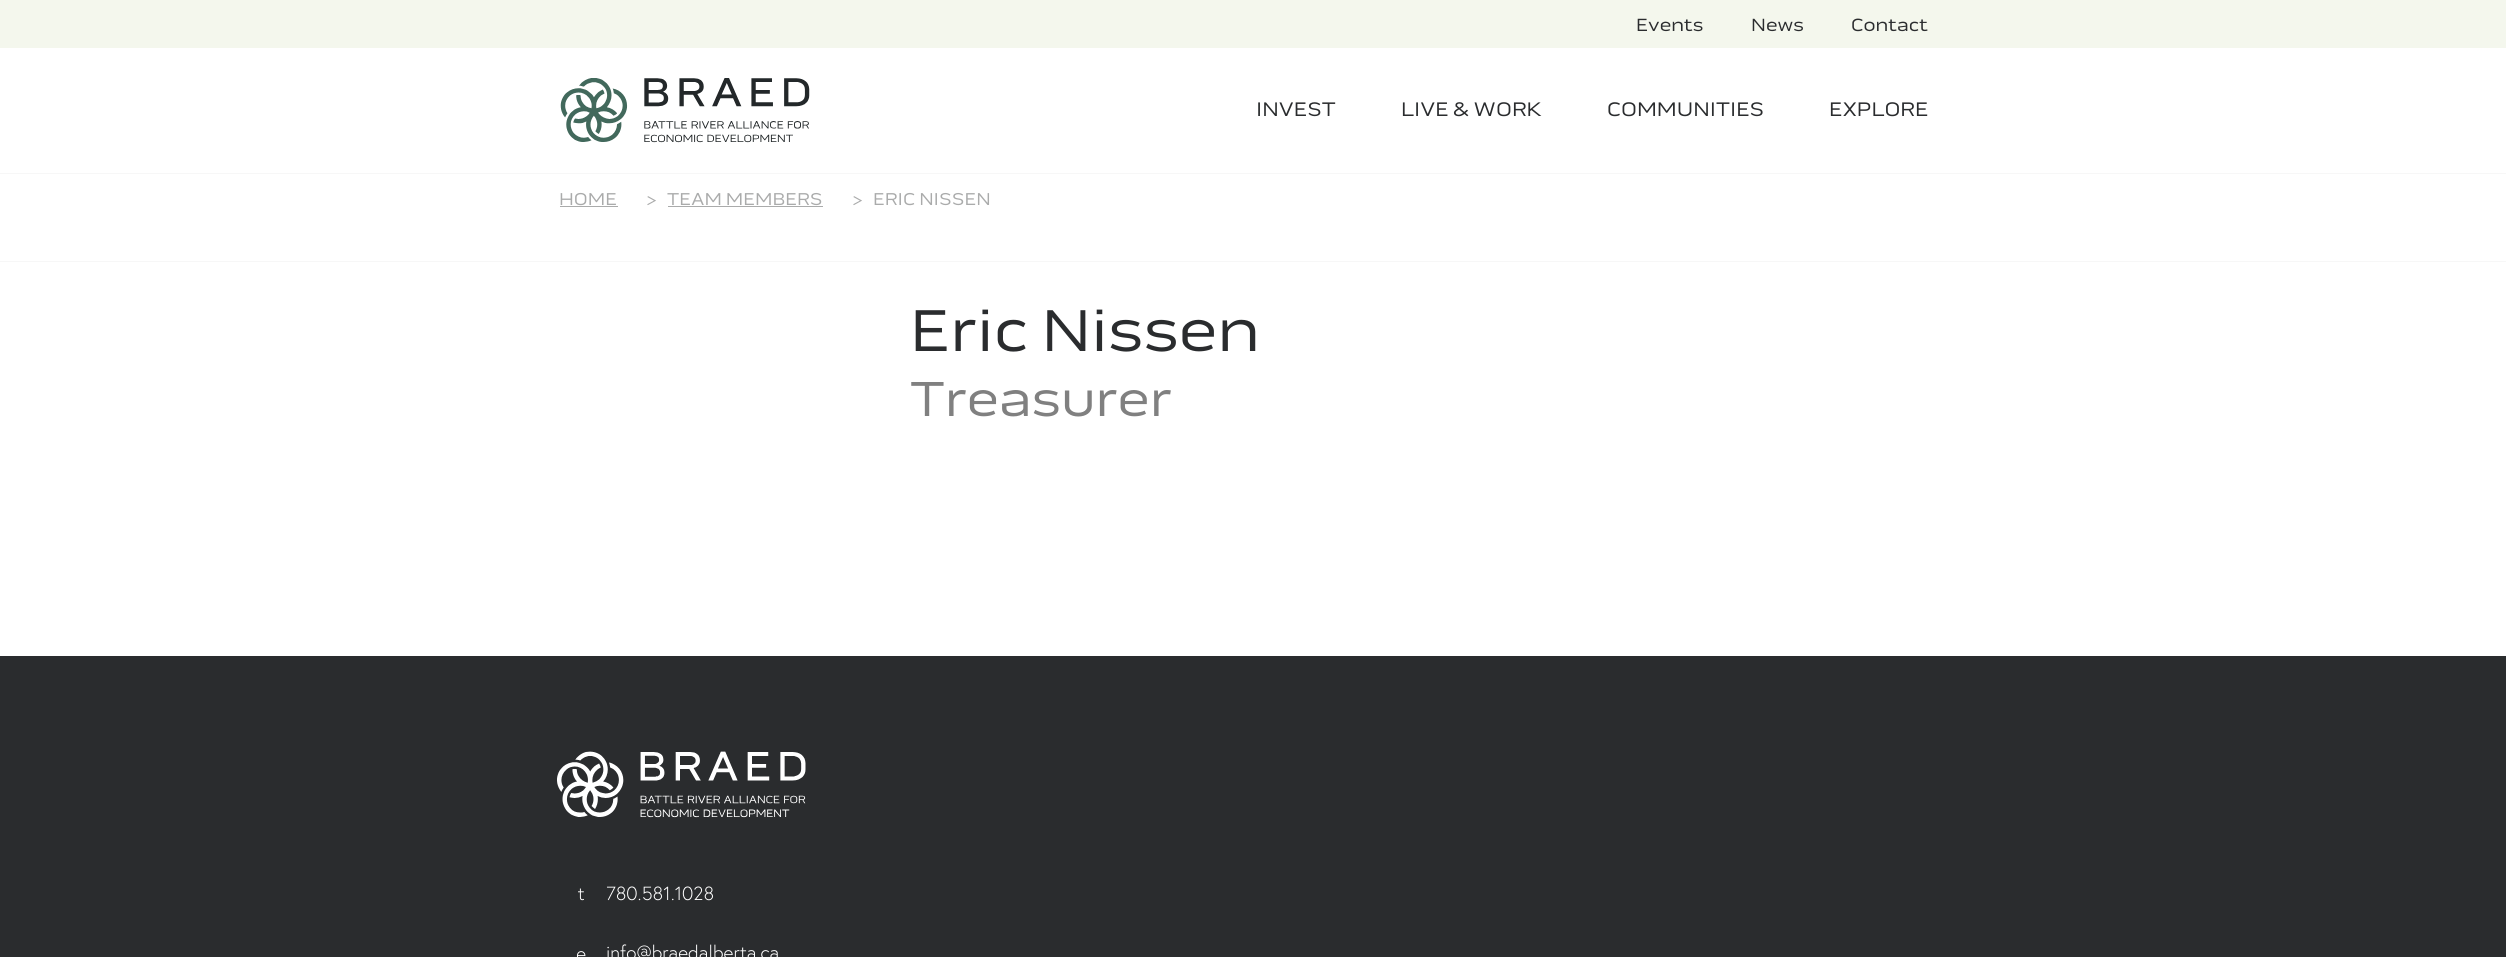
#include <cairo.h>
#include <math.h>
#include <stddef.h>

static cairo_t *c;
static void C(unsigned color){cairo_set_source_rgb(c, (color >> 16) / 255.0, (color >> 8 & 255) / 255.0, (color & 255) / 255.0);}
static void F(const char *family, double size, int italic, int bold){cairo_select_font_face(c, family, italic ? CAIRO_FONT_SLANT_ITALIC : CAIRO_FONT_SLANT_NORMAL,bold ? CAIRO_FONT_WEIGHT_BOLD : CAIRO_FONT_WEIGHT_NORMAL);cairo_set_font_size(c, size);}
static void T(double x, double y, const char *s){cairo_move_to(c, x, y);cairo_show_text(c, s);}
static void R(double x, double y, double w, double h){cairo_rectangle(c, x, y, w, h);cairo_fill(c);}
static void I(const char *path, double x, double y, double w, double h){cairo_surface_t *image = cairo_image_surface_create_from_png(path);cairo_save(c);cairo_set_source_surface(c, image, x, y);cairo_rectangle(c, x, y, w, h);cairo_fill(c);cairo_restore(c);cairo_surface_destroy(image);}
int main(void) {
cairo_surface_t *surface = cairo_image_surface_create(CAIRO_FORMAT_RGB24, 2506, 957);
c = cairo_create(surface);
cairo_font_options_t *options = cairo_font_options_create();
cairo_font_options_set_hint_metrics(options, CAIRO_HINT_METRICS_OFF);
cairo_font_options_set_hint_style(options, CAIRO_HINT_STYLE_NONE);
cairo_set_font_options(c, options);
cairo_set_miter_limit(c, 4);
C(0xffffff);
cairo_paint(c);
C(0xf4f7ed);
R(0,0,2506,48);
F("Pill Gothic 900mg",18,0,0);
C(0x2a2c2e);
T(1636,31,"Events");
T(1751,31,"News");
T(1851,31,"Contact");
I("1.png",560,78,250,65);
F("Pill Gothic 900mg",20,0,0);
T(1256,116,"INVEST");
T(1401,116,"LIVE & WORK");
T(1607,116,"COMMUNITIES");
T(1829,116,"EXPLORE");
C(0xf7f7f7);
R(0,173,2506,1);
R(0,261,2506,1);
F("Pill Gothic 900mg",17.5,0,0);
C(0xaaabab);
T(559,205,"HOME");
R(560,206,58,1);
T(646,205,">");
T(667,205,"TEAM MEMBERS");
R(668,206,155,1);
T(852,205,">");
T(873,205,"ERIC NISSEN");
F("Pill Gothic 900mg",60,0,0);
C(0x2a2c2e);
T(910,351,"Eric Nissen");
F("Pill Gothic 900mg",50,0,0);
C(0x808080);
T(910,416,"Treasurer");
C(0x2a2c2e);
R(0,656,2506,301);
I("2.png",557,751,249,67);
I("3.png",578,888,6,13);
F("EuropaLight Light",19,0,0);
C(0xffffff);
T(606,900,"780.581.1028");
I("4.png",576,951,10,6);
T(606,959,"info@braedalberta.ca");
cairo_surface_write_to_png(surface, "o.png");
cairo_font_options_destroy(options);
cairo_destroy(c);
cairo_surface_destroy(surface);
return 0;
}
